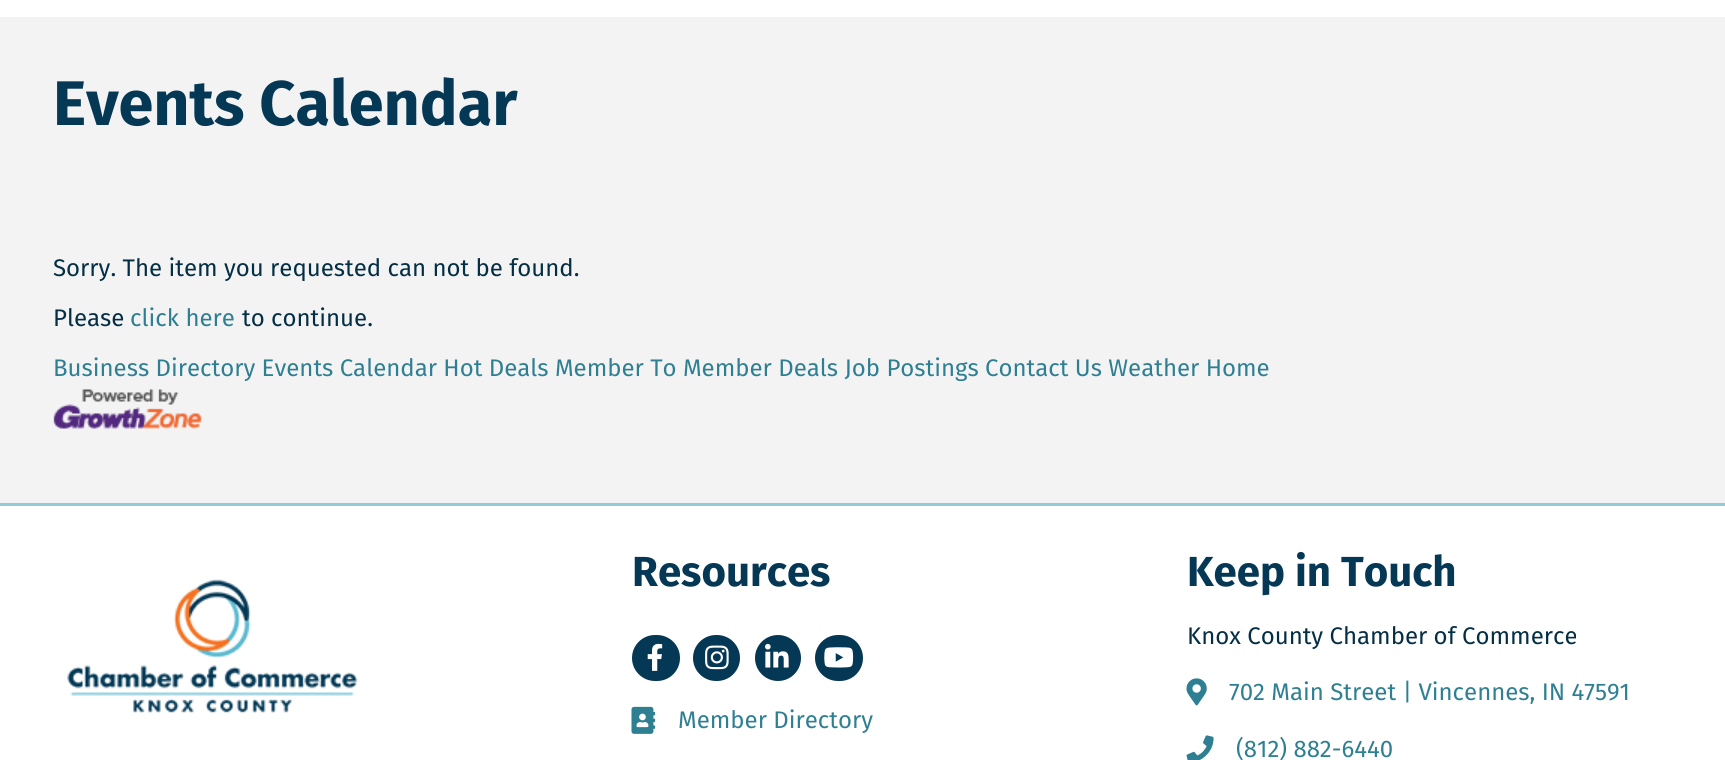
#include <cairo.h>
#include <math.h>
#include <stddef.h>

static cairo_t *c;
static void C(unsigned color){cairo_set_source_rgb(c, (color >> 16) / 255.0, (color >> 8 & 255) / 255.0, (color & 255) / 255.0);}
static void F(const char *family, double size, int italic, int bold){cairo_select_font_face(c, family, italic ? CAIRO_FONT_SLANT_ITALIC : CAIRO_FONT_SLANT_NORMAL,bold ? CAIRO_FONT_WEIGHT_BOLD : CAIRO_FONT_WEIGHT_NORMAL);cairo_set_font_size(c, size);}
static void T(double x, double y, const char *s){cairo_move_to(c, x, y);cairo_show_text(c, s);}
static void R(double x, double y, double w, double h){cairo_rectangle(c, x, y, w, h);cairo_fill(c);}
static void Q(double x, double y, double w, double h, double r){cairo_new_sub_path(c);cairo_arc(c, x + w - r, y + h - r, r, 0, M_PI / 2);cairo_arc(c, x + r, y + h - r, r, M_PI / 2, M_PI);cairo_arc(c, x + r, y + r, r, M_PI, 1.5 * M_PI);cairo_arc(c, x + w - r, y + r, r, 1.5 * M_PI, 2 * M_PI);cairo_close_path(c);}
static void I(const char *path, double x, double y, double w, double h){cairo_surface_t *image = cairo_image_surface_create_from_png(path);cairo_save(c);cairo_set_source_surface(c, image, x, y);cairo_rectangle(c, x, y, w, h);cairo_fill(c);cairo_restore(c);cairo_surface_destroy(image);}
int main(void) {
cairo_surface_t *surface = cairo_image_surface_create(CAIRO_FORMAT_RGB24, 1725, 760);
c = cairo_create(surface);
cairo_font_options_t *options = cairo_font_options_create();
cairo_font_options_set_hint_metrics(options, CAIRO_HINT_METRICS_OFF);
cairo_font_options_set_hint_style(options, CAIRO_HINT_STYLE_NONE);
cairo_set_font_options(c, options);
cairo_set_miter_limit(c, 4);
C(0xf3f3f3);
cairo_paint(c);
C(0xffffff);
R(0,0,1725,17);
F("Fira Sans",63,0,1);
C(0x043855);
T(53,125,"Events Calendar");
F("Fira Sans",24,0,0);
C(0x032e44);
T(53,276,"Sorry. The item you requested can not be found.");
T(53,326,"Please");
C(0x2f7f93);
T(130,326,"click here");
C(0x032e44);
T(242,326,"to continue.");
C(0x2f7f93);
T(53,376,"Business Directory Events Calendar Hot Deals Member To Member Deals Job Postings Contact Us Weather Home");
I("1.png",53,389,149,40);
C(0xffffff);
R(0,506,1725,254);
C(0x90cbd7);
R(0,503,1725,3);
I("2.png",67,579,291,134);
F("Fira Sans",42,0,1);
C(0x043855);
T(632,586,"Resources");
Q(632,635,48,46,23);
cairo_fill(c);
I("3.png",647,643,16,28);
Q(693,635,47,46,23);
cairo_fill(c);
I("4.png",705,645,24,25);
cairo_arc(c,778,658,23,0,2 * M_PI);
cairo_fill(c);
I("5.png",765,643,24,25);
Q(815,635,48,46,23);
cairo_fill(c);
I("6.png",824,647,30,21);
I("7.png",631,706,25,28);
F("Fira Sans",24,0,0);
C(0x2f7f93);
T(678,728,"Member Directory");
F("Fira Sans",42,0,1);
C(0x043855);
T(1187,586,"Keep in Touch");
F("Fira Sans",24,0,0);
C(0x032e44);
T(1187,644,"Knox County Chamber of Commerce");
I("8.png",1186,678,21,28);
C(0x2f7f93);
T(1229,700,"702 Main Street | Vincennes, IN 47591");
I("9.png",1186,735,28,25);
T(1236,757,"(812) 882-6440");
cairo_surface_write_to_png(surface, "o.png");
cairo_font_options_destroy(options);
cairo_destroy(c);
cairo_surface_destroy(surface);
return 0;
}
